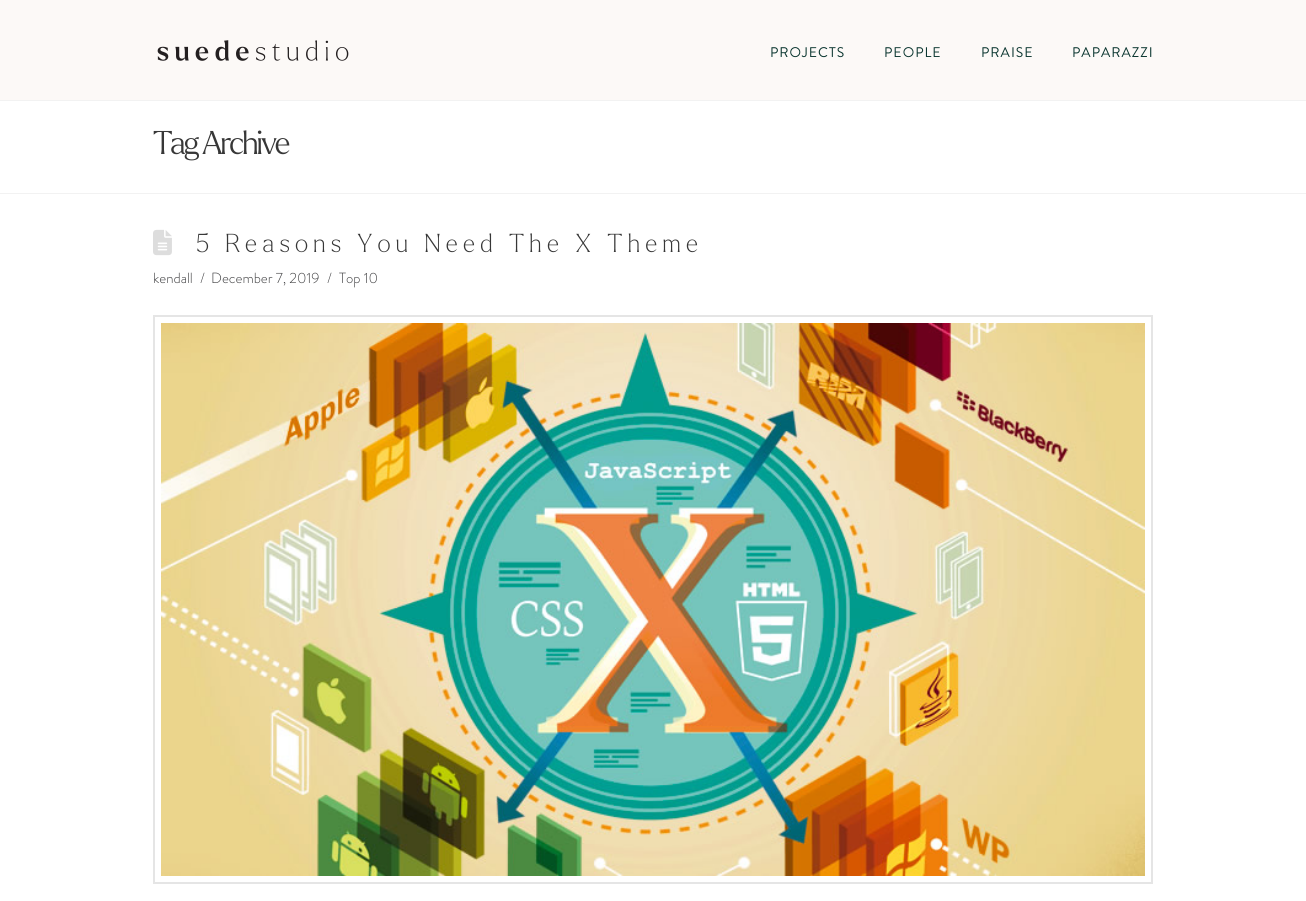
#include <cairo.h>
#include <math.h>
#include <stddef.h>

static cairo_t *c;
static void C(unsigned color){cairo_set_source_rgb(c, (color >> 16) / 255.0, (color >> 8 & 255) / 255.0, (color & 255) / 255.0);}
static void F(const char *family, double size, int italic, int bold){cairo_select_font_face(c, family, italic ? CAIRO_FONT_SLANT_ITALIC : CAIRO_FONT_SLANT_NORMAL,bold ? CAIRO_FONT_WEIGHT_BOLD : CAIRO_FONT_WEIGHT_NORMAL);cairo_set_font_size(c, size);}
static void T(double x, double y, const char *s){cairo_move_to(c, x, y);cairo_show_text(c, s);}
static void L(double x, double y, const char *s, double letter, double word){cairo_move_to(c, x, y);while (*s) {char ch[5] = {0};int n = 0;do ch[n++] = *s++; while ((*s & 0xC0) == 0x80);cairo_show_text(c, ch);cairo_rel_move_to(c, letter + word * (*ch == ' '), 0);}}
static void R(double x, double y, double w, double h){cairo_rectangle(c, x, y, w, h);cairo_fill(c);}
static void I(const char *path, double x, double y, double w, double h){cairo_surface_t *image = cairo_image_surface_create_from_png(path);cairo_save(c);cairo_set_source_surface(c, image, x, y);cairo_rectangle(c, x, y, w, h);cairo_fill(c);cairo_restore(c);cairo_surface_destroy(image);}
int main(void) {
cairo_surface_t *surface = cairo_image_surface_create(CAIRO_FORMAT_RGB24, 1306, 901);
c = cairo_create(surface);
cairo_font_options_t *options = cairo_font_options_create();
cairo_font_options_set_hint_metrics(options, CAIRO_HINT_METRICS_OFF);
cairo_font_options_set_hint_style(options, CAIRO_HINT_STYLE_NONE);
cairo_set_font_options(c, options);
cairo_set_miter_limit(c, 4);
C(0xffffff);
cairo_paint(c);
C(0xfcf9f7);
R(0,0,1306,100);
I("1.png",157,40,192,21);
F("Brandon Grotesque",14,0,0);
C(0x0b3630);
L(770,57,"PROJECTS",1,0);
L(884,57,"PEOPLE",1,0);
L(981,57,"PRAISE",1,0);
L(1072,57,"PAPARAZZI",1,0);
C(0xf2f2f2);
R(0,100,1306,1);
R(0,193,1306,1);
F("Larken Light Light",32,0,0);
C(0x373737);
L(153,154,"Tag Archive",-2.4,0);
I("2.png",153,229,19,27);
F("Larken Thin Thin",25.25,0,0);
L(196,252,"5 Reasons You Need The X Theme",5.05,0);
F("Brandon Grotesque Light",14.75,0,0);
C(0x404042);
T(153,283,"kendall");
T(200,283,"/");
T(211,283,"December 7, 2019");
T(327,283,"/");
T(339,283,"Top 10");
cairo_rectangle(c,154,316,998,567);
C(0xe5e5e5);
cairo_stroke(c);
I("3.png",161,323,984,553);
cairo_surface_write_to_png(surface, "o.png");
cairo_font_options_destroy(options);
cairo_destroy(c);
cairo_surface_destroy(surface);
return 0;
}
